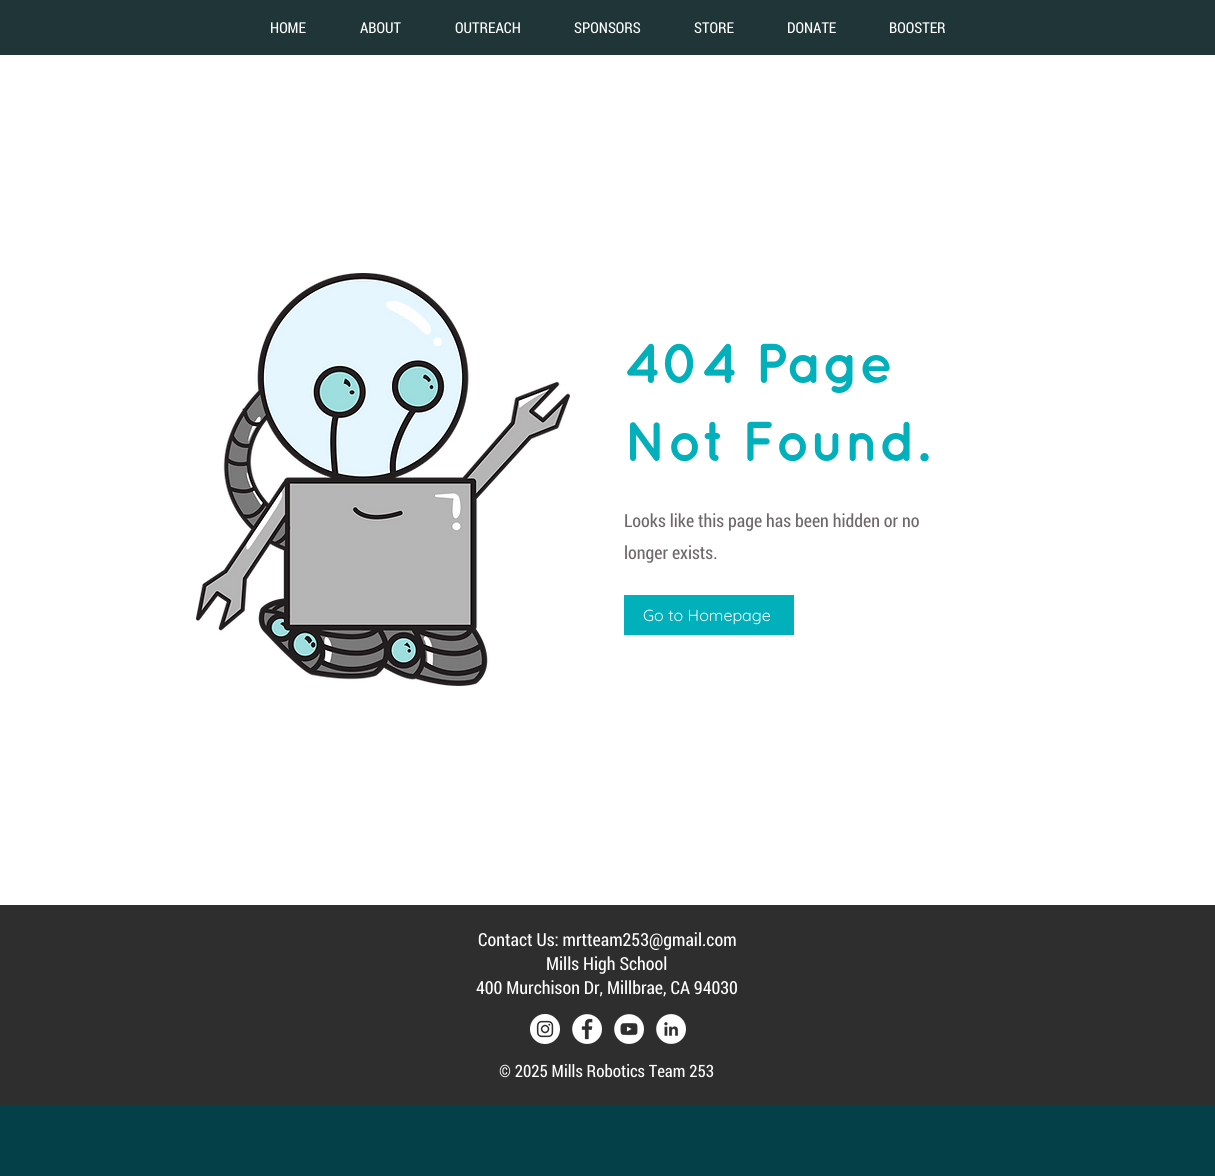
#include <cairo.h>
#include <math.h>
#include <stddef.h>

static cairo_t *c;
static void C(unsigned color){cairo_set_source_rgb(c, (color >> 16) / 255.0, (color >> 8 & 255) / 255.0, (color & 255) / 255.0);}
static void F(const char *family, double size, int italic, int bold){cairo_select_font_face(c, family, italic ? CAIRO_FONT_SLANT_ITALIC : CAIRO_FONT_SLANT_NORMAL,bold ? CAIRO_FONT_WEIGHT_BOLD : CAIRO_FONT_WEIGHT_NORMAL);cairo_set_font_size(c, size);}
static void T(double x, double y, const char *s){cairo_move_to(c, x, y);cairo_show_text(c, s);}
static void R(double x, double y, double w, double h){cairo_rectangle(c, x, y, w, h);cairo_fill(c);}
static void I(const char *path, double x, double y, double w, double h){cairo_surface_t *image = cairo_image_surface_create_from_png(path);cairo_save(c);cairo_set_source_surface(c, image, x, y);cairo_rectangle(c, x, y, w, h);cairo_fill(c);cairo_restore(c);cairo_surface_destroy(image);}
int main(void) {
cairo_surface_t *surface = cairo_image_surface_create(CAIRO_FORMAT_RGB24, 1215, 1176);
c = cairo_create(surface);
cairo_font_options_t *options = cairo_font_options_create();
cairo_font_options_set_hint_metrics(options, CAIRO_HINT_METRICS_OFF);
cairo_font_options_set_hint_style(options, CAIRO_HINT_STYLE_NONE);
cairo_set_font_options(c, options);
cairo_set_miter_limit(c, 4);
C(0x044047);
cairo_paint(c);
C(0x1f3538);
R(0,0,1215,55);
F("Roboto Condensed",15,0,0);
C(0xffffff);
T(270,33,"HOME");
T(360,33,"ABOUT");
T(455,33,"OUTREACH");
T(574,33,"SPONSORS");
T(694,33,"STORE");
T(787,33,"DONATE");
T(889,33,"BOOSTER");
R(0,55,1215,850);
I("1.png",196,273,374,413);
F("Quicksand",56,0,1);
C(0x01b0bb);
T(624,383,"404 Page");
T(624,461,"Not Found.");
F("Roboto Condensed",18,0,0);
C(0x6e6968);
T(624,527,"Looks like this page has been hidden or no");
T(624,559,"longer exists.");
C(0x01b0bb);
R(624,595,170,40);
F("Quicksand",16,0,0);
C(0xffffff);
T(643,621,"Go to Homepage");
C(0x2f2e2e);
R(0,905,1215,200);
F("Roboto Condensed",18,0,0);
C(0xffffff);
T(478,946,"Contact Us: mrtteam253@gmail.com");
T(546,970,"Mills High School");
T(476,994,"400 Murchison Dr, Millbrae, CA 94030");
I("2.png",530,1014,30,30);
I("3.png",572,1014,30,30);
I("4.png",614,1014,30,30);
I("5.png",656,1014,30,30);
F("Roboto Condensed",17,0,0);
T(499,1077,"© 2025 Mills Robotics Team 253");
cairo_surface_write_to_png(surface, "o.png");
cairo_font_options_destroy(options);
cairo_destroy(c);
cairo_surface_destroy(surface);
return 0;
}
